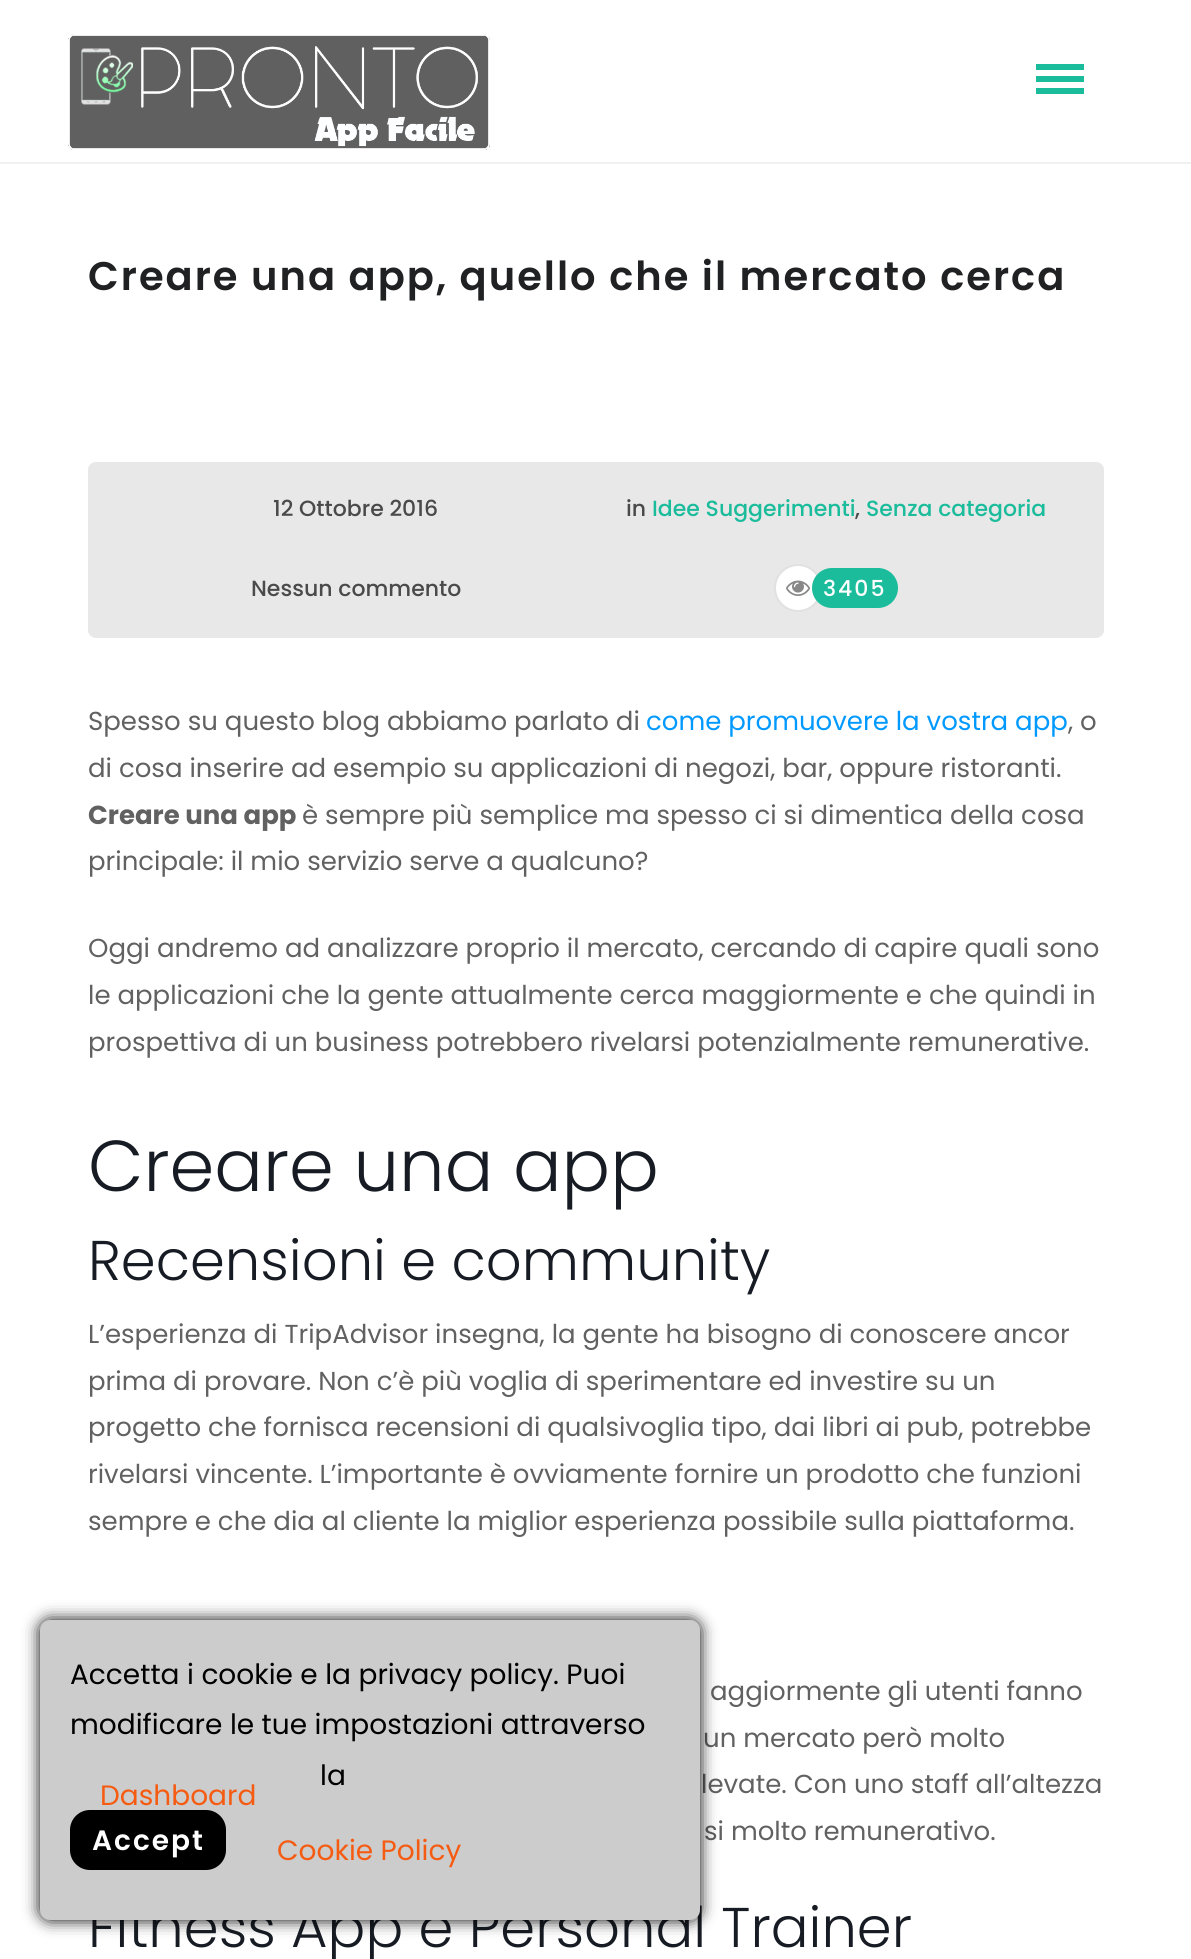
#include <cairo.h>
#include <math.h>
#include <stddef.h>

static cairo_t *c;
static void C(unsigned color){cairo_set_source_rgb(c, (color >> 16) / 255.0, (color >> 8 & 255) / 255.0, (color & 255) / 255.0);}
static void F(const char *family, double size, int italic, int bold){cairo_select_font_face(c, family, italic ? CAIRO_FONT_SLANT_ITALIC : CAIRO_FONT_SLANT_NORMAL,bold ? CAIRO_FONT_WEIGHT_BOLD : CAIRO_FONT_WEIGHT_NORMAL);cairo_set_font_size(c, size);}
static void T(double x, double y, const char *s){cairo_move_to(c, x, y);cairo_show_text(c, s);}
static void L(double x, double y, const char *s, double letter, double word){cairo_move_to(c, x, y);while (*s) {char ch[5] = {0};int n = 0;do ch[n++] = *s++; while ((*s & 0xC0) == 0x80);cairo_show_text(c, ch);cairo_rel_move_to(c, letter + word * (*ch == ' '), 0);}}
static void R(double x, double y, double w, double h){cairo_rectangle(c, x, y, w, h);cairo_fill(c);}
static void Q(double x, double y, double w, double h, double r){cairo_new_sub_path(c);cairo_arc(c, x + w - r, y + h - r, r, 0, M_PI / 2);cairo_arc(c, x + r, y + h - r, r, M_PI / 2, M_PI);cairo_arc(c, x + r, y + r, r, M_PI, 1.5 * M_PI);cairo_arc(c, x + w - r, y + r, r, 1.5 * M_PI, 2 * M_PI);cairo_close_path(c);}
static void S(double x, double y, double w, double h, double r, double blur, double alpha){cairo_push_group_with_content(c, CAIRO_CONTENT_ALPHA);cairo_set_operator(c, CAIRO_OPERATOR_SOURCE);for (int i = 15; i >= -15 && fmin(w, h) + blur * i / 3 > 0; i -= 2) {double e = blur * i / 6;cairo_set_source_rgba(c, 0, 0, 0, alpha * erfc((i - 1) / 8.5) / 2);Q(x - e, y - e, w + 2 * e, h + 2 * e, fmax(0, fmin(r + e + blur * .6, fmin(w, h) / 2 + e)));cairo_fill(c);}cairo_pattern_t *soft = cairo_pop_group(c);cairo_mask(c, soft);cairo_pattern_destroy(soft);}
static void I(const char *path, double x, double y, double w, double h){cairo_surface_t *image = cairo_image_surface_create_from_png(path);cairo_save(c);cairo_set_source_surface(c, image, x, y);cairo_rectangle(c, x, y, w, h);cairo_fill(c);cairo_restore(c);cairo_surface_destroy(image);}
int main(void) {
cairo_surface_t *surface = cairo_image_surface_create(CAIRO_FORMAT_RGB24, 1191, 1959);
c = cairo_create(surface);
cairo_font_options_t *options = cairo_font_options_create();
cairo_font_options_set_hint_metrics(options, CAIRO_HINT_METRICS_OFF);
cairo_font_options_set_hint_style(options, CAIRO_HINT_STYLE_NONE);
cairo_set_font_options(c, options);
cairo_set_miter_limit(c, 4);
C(0xffffff);
cairo_paint(c);
C(0xf1f1f1);
R(0,162,1191,2);
I("1.png",68,34,422,116);
C(0x1bbc9b);
R(1036,64,48,6);
R(1036,76,48,6);
R(1036,88,48,6);
F("Poppins SemiBold",40,0,0);
C(0x1f2123);
L(88,290,"Creare una app, quello che il mercato cerca",2,0);
C(0xe8e8e8);
Q(88,462,1016,176,8);
cairo_fill(c);
F("Poppins Medium",22,0,0);
C(0x4a4a4a);
T(273,516,"12 Ottobre 2016");
T(626,516,"in");
C(0x1bbc9b);
T(652,516,"Idee Suggerimenti");
C(0x4a4a4a);
T(855,516,",");
C(0x1bbc9b);
T(866,516,"Senza categoria");
C(0x4a4a4a);
T(251,596,"Nessun commento");
C(0xffffff);
cairo_new_path(c);
cairo_arc(c,798,588,23,0,2 * M_PI);
cairo_fill_preserve(c);
C(0xe1e1e1);
cairo_stroke(c);
C(0x1bbc9b);
Q(812,568,86,40,20);
cairo_fill(c);
C(0xffffff);
L(823,596,"3405",2,0);
I("2.png",786,580,24,16);
F("Poppins",26,0,0);
C(0x616161);
T(88,730,"Spesso su questo blog abbiamo parlato di");
C(0x0099ff);
T(646,730,"come promuovere la vostra app");
C(0x616161);
T(1068,730,", o");
T(88,777,"di cosa inserire ad esempio su applicazioni di negozi, bar, oppure ristoranti.");
F("Poppins",26,0,1);
T(88,824,"Creare una app");
F("Poppins",26,0,0);
T(302,824,"è sempre più semplice ma spesso ci si dimentica della cosa");
T(88,870,"principale: il mio servizio serve a qualcuno?");
T(88,957,"Oggi andremo ad analizzare proprio il mercato, cercando di capire quali sono");
T(88,1004,"le applicazioni che la gente attualmente cerca maggiormente e che quindi in");
T(88,1051,"prospettiva di un business potrebbero rivelarsi potenzialmente remunerative.");
F("Poppins Light",72,0,0);
C(0x171c24);
T(88,1191,"Creare una app");
F("Poppins Light",56,0,0);
T(88,1280,"Recensioni e community");
F("Poppins",26,0,0);
C(0x616161);
T(88,1343,"L’esperienza di TripAdvisor insegna, la gente ha bisogno di conoscere ancor");
T(88,1390,"prima di provare. Non c’è più voglia di sperimentare ed investire su un");
T(88,1436,"progetto che fornisca recensioni di qualsivoglia tipo, dai libri ai pub, potrebbe");
T(88,1483,"rivelarsi vincente. L’importante è ovviamente fornire un prodotto che funzioni");
T(88,1530,"sempre e che dia al cliente la miglior esperienza possibile sulla piattaforma.");
T(710,1700,"aggiormente gli utenti fanno");
T(703,1747,"un mercato però molto");
T(701,1793,"levate. Con uno staff all’altezza");
T(704,1840,"si molto remunerativo.");
F("Poppins Light",56,0,0);
C(0x171c24);
T(88,1947,"Fitness App e Personal Trainer");
C(0x000000);
S(40,1620,660,300,10,8,1);
C(0xcccccc);
Q(40,1620,660,300,10);
cairo_fill(c);
F("Poppins",28,0,0);
C(0x000000);
T(70,1684,"Accetta i cookie e la privacy policy. Puoi");
T(70,1734,"modificare le tue impostazioni attraverso");
T(320,1785,"la");
C(0xf55b11);
T(100,1805,"Dashboard");
C(0x000000);
Q(71,1811,154,58,19);
cairo_fill_preserve(c);
cairo_stroke(c);
F("Poppins SemiBold",28,0,0);
C(0xffffff);
L(92,1850,"Accept",2,0);
F("Poppins",28,0,0);
C(0xf55b11);
T(277,1860,"Cookie Policy");
cairo_surface_write_to_png(surface, "o.png");
cairo_font_options_destroy(options);
cairo_destroy(c);
cairo_surface_destroy(surface);
return 0;
}
